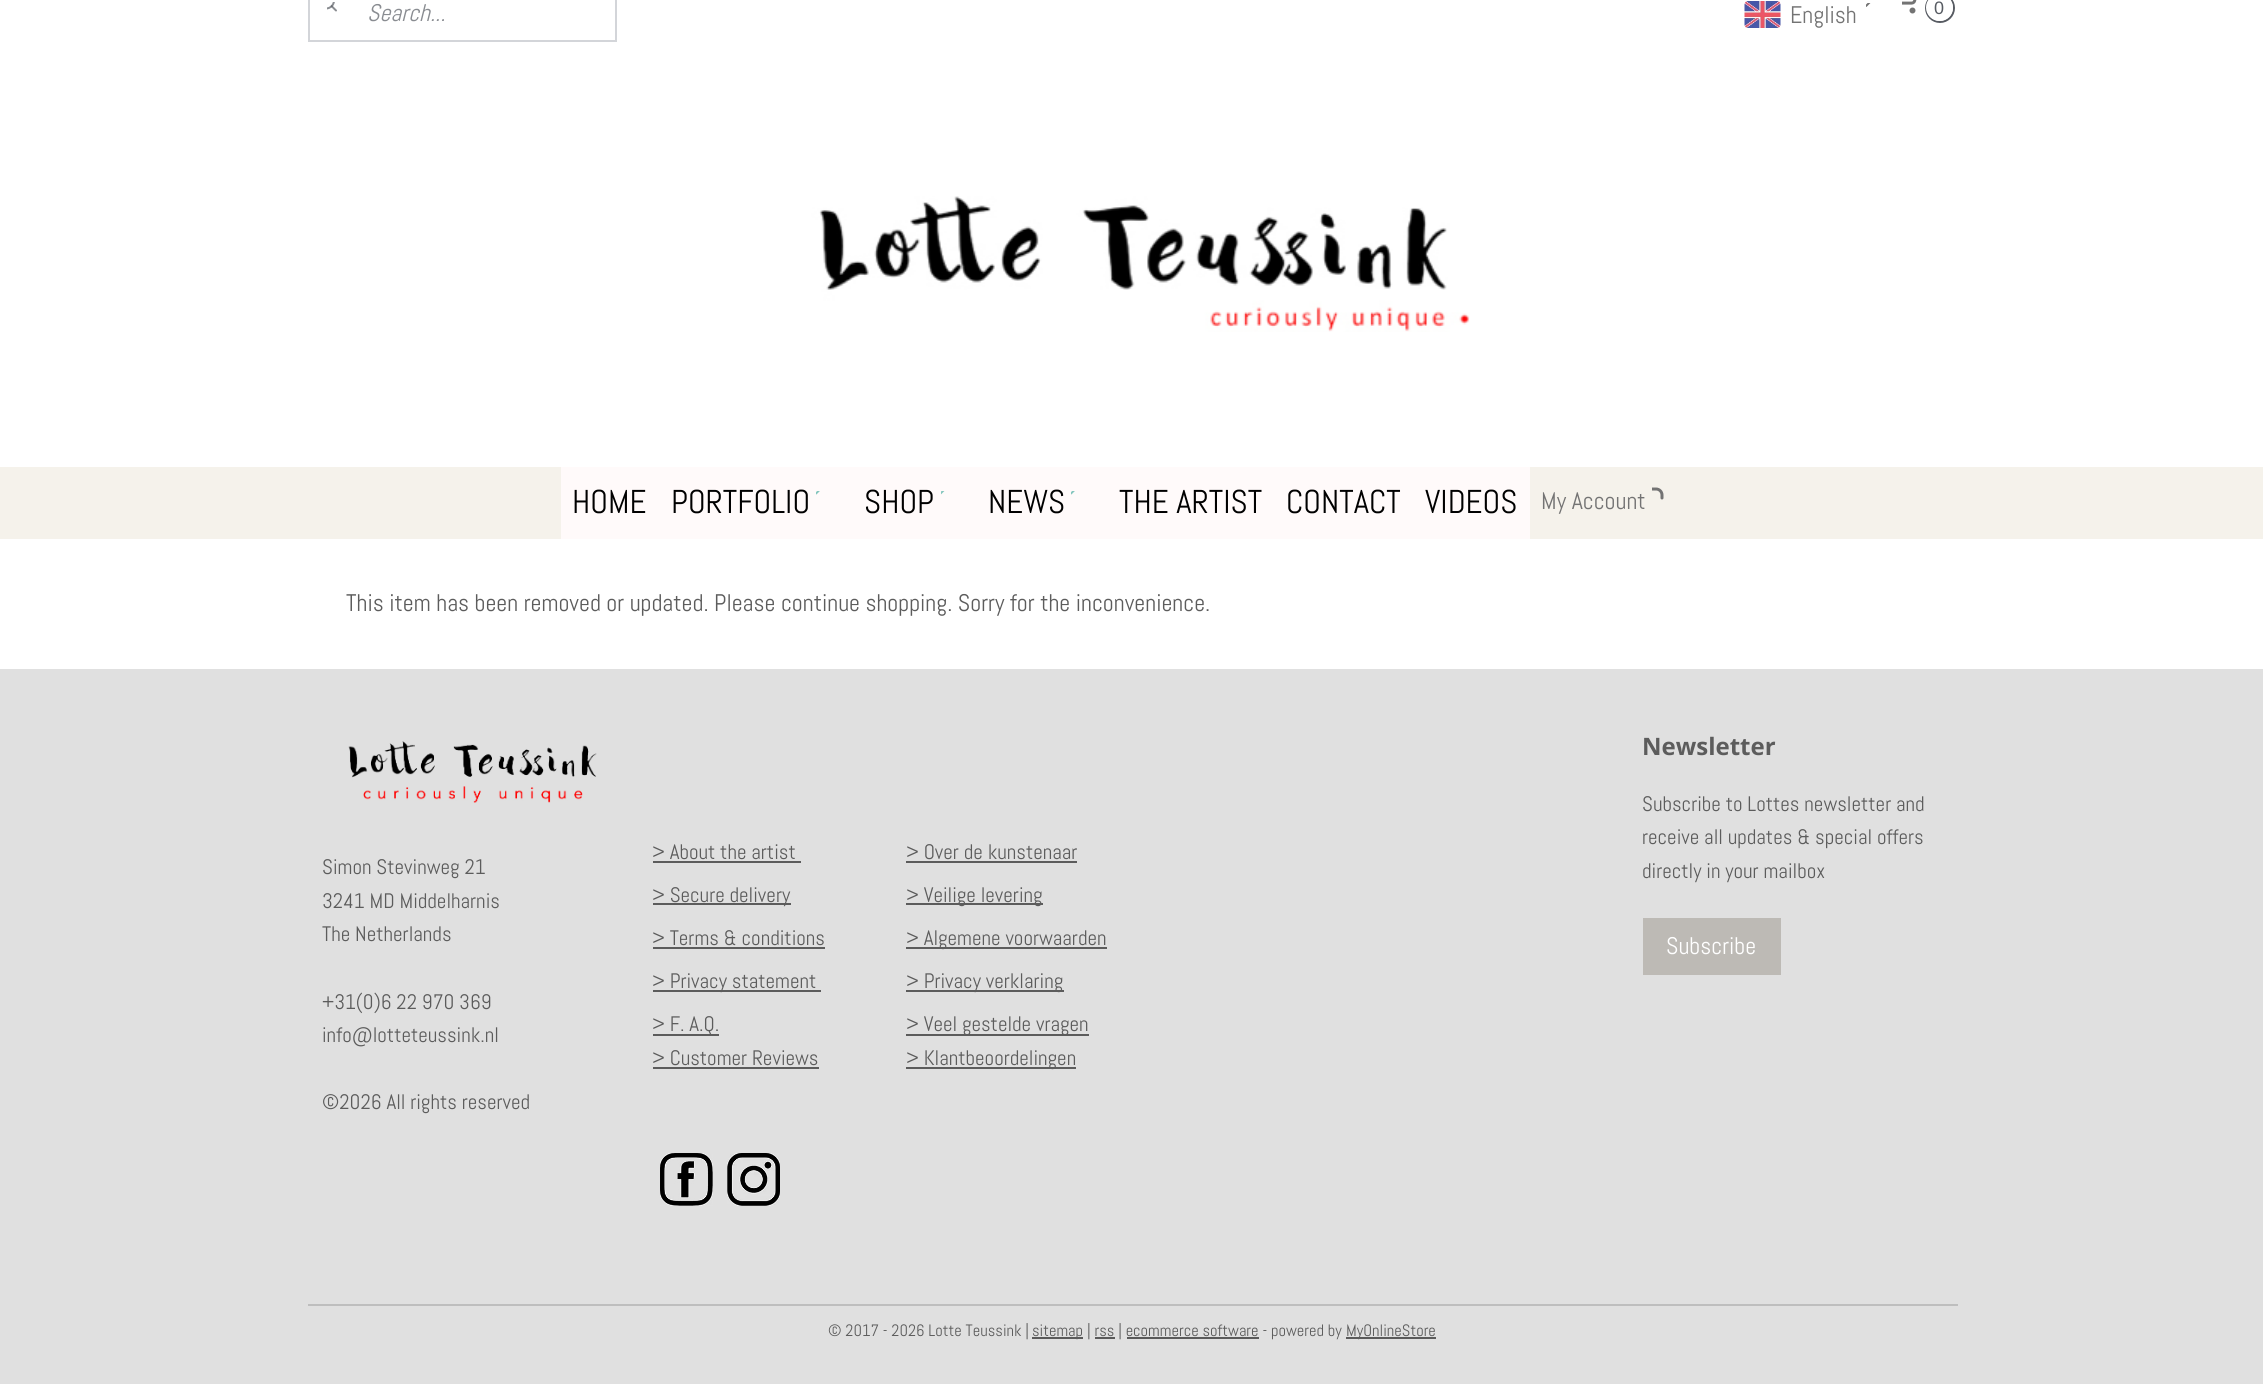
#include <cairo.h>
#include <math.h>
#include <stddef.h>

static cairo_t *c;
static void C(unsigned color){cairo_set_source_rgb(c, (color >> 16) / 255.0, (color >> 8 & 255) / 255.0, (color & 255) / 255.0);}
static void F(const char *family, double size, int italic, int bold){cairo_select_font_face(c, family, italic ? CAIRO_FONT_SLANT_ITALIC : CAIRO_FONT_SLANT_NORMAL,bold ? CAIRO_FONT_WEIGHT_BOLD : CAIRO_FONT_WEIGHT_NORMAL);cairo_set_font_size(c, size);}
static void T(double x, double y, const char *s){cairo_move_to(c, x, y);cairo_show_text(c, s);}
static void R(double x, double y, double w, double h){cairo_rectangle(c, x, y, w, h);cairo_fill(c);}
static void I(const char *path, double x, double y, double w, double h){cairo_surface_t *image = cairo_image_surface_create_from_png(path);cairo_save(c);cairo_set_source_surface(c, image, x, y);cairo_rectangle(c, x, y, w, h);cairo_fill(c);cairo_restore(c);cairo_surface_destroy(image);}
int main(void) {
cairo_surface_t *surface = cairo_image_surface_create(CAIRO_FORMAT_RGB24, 2263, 1384);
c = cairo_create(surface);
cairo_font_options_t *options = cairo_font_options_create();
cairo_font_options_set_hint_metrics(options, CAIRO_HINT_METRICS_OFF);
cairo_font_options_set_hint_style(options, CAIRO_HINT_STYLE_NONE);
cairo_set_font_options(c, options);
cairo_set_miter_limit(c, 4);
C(0xffffff);
cairo_paint(c);
cairo_rectangle(c,309,-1,307,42);
C(0xd3d5d9);
cairo_stroke(c);
I("1.png",327,2,10,10);
F("Abel",24,1,0);
C(0x898c91);
T(367,21,"Search...");
I("2.png",1744,1,37,27);
I("3.png",1866,3,5,4);
F("Abel",24,0,0);
C(0x737373);
T(1790,23,"English");
I("4.png",1902,0,15,14);
cairo_arc(c,1940,8,14,0,2 * M_PI);
C(0x575b62);
cairo_stroke(c);
C(0xffffff);
cairo_arc(c,1939.5,7.5,13.5,0,2 * M_PI);
cairo_fill(c);
F("Liberation Sans",18,0,0);
C(0x575b62);
T(1934,14,"0");
I("5.png",808,196,662,136);
C(0xf5f2eb);
R(0,467,2263,72);
C(0xfffafa);
R(561,467,416,72);
F("Abel",33,0,0);
C(0x000000);
T(572,513,"HOME");
T(671,513,"PORTFOLIO");
I("6.png",816,491,4,4);
T(864,513,"SHOP");
I("7.png",941,491,4,4);
C(0xfffafa);
R(977,467,553,72);
C(0x000000);
T(988,513,"NEWS");
I("6.png",1071,491,4,4);
T(1119,513,"THE ARTIST");
T(1286,513,"CONTACT");
T(1425,513,"VIDEOS");
F("Abel",24,0,0);
C(0x737373);
T(1541,509,"My Account");
I("8.png",1652,487,12,13);
C(0x5c5c5c);
T(346,611,"This item has been removed or updated. Please continue shopping. Sorry for the inconvenience.");
C(0xe0e0e0);
R(0,669,2263,715);
I("9.png",348,741,249,62);
F("Abel",21,0,0);
C(0x5c5c5c);
T(322,874,"Simon Stevinweg 21");
T(322,908,"3241 MD Middelharnis");
T(322,941,"The Netherlands");
T(322,1009,"+31(0)6 22 970 369");
T(322,1042,"info@lotteteussink.nl");
T(322,1109,"©2026 All rights reserved");
T(652,859,"> About the artist");
R(653,861,148,2);
T(906,859,"> Over de kunstenaar");
R(906,861,171,2);
R(653,903,138,2);
T(652,902,"> Secure delivery");
R(906,903,137,2);
T(906,902,"> Veilige levering");
T(652,945,"> Terms & conditions");
R(653,947,172,2);
R(906,947,201,2);
T(906,945,"> Algemene voorwaarden");
R(653,990,168,2);
T(652,988,"> Privacy statement");
R(906,990,158,2);
T(906,988,"> Privacy verklaring");
R(653,1034,66,2);
T(652,1031,"> F. A.Q.");
T(652,1065,"> Customer Reviews");
R(653,1067,166,2);
R(906,1034,183,2);
T(906,1031,"> Veel gestelde vragen");
R(906,1067,170,2);
T(906,1065,"> Klantbeoordelingen");
I("10.png",660,1153,53,53);
I("11.png",727,1153,53,53);
F("Open Sans",24,0,1);
T(1642,755,"Newsletter");
F("Abel",21,0,0);
T(1642,811,"Subscribe to Lottes newsletter and");
T(1642,844,"receive all updates & special offers");
T(1642,878,"directly in your mailbox");
C(0xbdbab5);
R(1643,918,138,57);
F("Abel",24,0,0);
C(0xffffff);
T(1666,954,"Subscribe");
C(0xbebebe);
R(308,1304,1650,2);
F("Abel",16.5,0,0);
C(0x5c5c5c);
T(828,1336,"© 2017 - 2026 Lotte Teussink |");
C(0x5a5a5a);
R(1032,1337,51,2);
C(0x5c5c5c);
T(1032,1336,"sitemap");
T(1087,1336,"| rss | ecommerce software - powered by");
C(0x5a5a5a);
R(1346,1337,90,2);
C(0x5c5c5c);
T(1346,1336,"MyOnlineStore");
C(0x5a5a5a);
R(1095,1337,20,2);
R(1127,1337,132,2);
cairo_surface_write_to_png(surface, "o.png");
cairo_font_options_destroy(options);
cairo_destroy(c);
cairo_surface_destroy(surface);
return 0;
}
